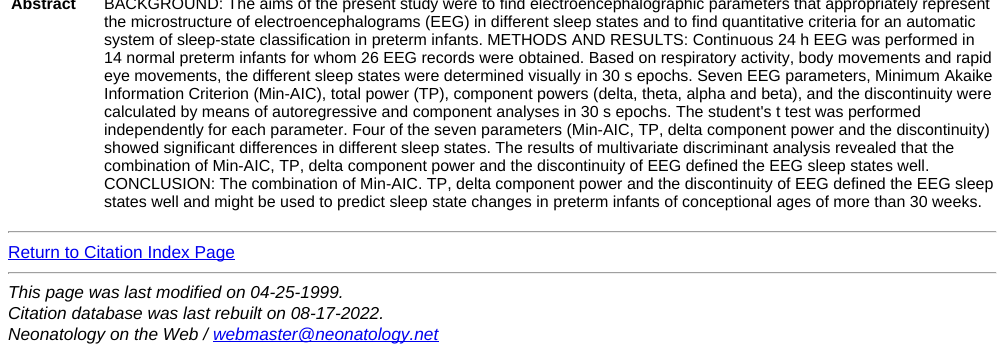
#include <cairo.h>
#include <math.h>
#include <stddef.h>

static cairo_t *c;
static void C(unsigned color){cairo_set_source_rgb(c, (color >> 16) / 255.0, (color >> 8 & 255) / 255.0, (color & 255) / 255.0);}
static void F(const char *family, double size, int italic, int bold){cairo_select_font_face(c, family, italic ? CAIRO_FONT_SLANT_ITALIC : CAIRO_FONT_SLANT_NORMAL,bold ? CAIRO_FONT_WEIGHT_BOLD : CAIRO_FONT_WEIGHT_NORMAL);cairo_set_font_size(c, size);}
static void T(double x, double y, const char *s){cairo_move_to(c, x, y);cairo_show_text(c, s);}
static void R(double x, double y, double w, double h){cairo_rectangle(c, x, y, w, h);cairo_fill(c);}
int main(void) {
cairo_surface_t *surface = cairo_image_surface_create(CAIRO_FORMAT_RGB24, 1005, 353);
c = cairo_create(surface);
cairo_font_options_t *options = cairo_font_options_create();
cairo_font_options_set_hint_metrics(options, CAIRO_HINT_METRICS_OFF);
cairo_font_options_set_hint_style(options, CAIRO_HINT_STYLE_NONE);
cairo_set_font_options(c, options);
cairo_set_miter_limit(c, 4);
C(0xffffff);
cairo_paint(c);
F("Liberation Sans",16,0,1);
C(0x000000);
T(11,9,"Abstract");
F("Liberation Sans",16,0,0);
T(104,9,"BACKGROUND: The aims of the present study were to find electroencephalographic parameters that appropriately represent");
T(104,27,"the microstructure of electroencephalograms (EEG) in different sleep states and to find quantitative criteria for an automatic");
T(104,45,"system of sleep-state classification in preterm infants. METHODS AND RESULTS: Continuous 24 h EEG was performed in");
T(104,63,"14 normal preterm infants for whom 26 EEG records were obtained. Based on respiratory activity, body movements and rapid");
T(104,81,"eye movements, the different sleep states were determined visually in 30 s epochs. Seven EEG parameters, Minimum Akaike");
T(104,99,"Information Criterion (Min-AIC), total power (TP), component powers (delta, theta, alpha and beta), and the discontinuity were");
T(104,117,"calculated by means of autoregressive and component analyses in 30 s epochs. The student's t test was performed");
T(104,135,"independently for each parameter. Four of the seven parameters (Min-AIC, TP, delta component power and the discontinuity)");
T(104,153,"showed significant differences in different sleep states. The results of multivariate discriminant analysis revealed that the");
T(104,171,"combination of Min-AIC, TP, delta component power and the discontinuity of EEG defined the EEG sleep states well.");
T(104,189,"CONCLUSION: The combination of Min-AIC. TP, delta component power and the discontinuity of EEG defined the EEG sleep");
T(104,207,"states well and might be used to predict sleep state changes in preterm infants of conceptional ages of more than 30 weeks.");
C(0x9f9f9f);
R(8,231,989,1);
C(0xeeeeee);
R(996,231,1,2);
R(8,232,989,1);
C(0x9f9f9f);
R(8,231,1,2);
C(0x0000ee);
R(8,259,227,1);
F("Liberation Sans",17.3,0,0);
T(8,258,"Return to Citation Index Page");
C(0x9f9f9f);
R(8,272,989,1);
C(0xeeeeee);
R(996,272,1,2);
R(8,273,989,1);
C(0x9f9f9f);
R(8,272,1,2);
F("Liberation Sans",17.3,1,0);
C(0x000000);
T(8,298,"This page was last modified on 04-25-1999.");
T(8,319,"Citation database was last rebuilt on 08-17-2022.");
T(8,340,"Neonatology on the Web /");
C(0x0000ee);
R(213,341,226,1);
T(213,340,"webmaster@neonatology.net");
cairo_surface_write_to_png(surface, "o.png");
cairo_font_options_destroy(options);
cairo_destroy(c);
cairo_surface_destroy(surface);
return 0;
}
